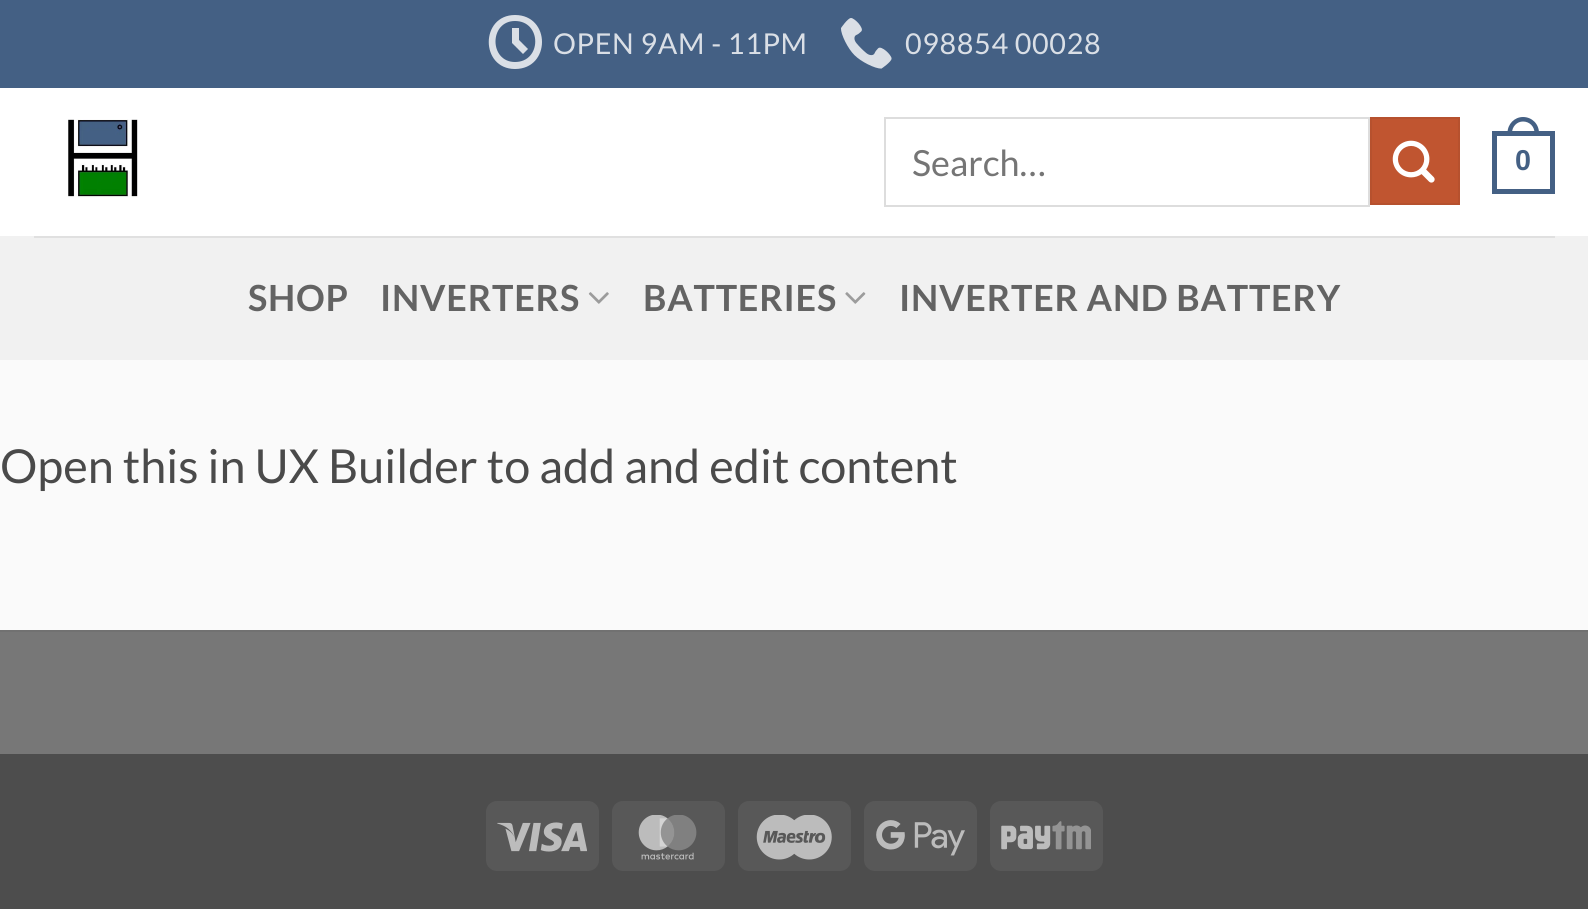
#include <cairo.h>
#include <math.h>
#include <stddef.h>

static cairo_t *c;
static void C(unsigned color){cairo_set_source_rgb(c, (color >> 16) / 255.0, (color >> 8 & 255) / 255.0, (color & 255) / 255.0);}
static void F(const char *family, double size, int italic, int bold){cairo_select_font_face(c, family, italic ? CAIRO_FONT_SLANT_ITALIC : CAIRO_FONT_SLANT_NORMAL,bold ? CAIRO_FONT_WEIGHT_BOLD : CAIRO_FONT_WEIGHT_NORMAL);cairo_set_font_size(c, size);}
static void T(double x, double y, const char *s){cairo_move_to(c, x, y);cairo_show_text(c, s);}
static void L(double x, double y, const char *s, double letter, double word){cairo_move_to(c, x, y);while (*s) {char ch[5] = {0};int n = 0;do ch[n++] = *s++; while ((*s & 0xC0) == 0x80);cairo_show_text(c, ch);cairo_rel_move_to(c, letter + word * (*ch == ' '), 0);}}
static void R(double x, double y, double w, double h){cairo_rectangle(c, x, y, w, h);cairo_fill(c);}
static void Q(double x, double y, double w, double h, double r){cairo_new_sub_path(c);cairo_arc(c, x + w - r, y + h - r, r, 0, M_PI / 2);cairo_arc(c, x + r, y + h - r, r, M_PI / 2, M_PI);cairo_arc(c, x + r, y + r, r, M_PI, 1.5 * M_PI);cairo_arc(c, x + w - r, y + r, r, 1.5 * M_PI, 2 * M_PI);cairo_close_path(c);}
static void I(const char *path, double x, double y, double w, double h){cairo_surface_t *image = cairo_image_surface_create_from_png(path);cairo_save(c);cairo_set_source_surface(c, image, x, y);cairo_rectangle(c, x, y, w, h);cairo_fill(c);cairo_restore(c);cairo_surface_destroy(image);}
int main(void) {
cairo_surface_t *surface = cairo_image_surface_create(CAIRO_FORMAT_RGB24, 1588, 909);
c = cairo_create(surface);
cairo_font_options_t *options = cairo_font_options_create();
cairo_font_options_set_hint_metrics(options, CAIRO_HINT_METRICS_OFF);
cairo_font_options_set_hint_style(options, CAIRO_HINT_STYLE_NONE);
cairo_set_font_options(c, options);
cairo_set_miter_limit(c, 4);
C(0xffffff);
cairo_paint(c);
C(0x446084);
R(0,0,1588,88);
C(0xdadfe6);
cairo_new_path(c);
cairo_move_to(c,523,54);
cairo_line_to(c,512,43);
cairo_line_to(c,512,28);
cairo_line_to(c,519,28);
cairo_line_to(c,519,40);
cairo_line_to(c,528,49);
cairo_close_path(c);
cairo_move_to(c,515,15);
cairo_curve_to(c,480,15,480,69,515,69);
cairo_curve_to(c,551,69,551,15,515,15);
cairo_close_path(c);
cairo_move_to(c,515,62);
cairo_curve_to(c,489,62,489,21,515,21);
cairo_curve_to(c,542,21,542,62,515,62);
cairo_close_path(c);
cairo_fill(c);
F("Lato",28.75,0,0);
L(553,54,"OPEN 9AM - 11PM",.6,0);
I("1.png",841,18,51,51);
L(905,54,"098854 00028",.6,0);
I("2.png",68,119,70,79);
cairo_rectangle(c,885,118,484,88);
C(0xdddddd);
cairo_stroke(c);
F("Lato",36,0,0);
C(0x757575);
T(912,176,"Search…");
C(0xc05530);
cairo_rectangle(c,1371,118,88,86);
cairo_fill_preserve(c);
C(0xb6512e);
cairo_stroke(c);
I("3.png",1392,140,43,43);
cairo_rectangle(c,1494.5,133.5,58,58);
C(0x446084);
cairo_set_line_width(c,5);
cairo_stroke(c);
cairo_set_fill_rule(c,CAIRO_FILL_RULE_EVEN_ODD);
cairo_new_path(c);
cairo_move_to(c,1523,117);
cairo_curve_to(c,1532,117,1539,124,1539,133);
cairo_line_to(c,1539,135);
cairo_line_to(c,1507.5,135);
cairo_line_to(c,1507.5,133);
cairo_curve_to(c,1507.5,124,1514.5,117,1523,117);
cairo_close_path(c);
cairo_move_to(c,1523,121.5);
cairo_curve_to(c,1529.5,121.5,1534.5,126.5,1534.5,133);
cairo_line_to(c,1534.5,135);
cairo_line_to(c,1512,135);
cairo_line_to(c,1512,133);
cairo_curve_to(c,1512,126.5,1517,121.5,1523,121.5);
cairo_close_path(c);
cairo_fill(c);
F("Liberation Sans",28.75,0,1);
T(1515,170,"0");
C(0xf1f1f1);
R(0,236,1588,124);
C(0xe0e0e0);
R(34,236,1521,2);
F("Lato",36,0,1);
C(0x636363);
L(248,311,"SHOP",.75,0);
L(380,311,"INVERTERS",.75,0);
I("4.png",588,292,21,12);
L(643,311,"BATTERIES",.75,0);
I("5.png",845,292,21,12);
L(899,311,"INVERTER AND BATTERY",.75,0);
C(0xfafafa);
R(0,360,1588,270);
F("Lato",46.8,0,0);
C(0x4a4a4a);
T(0,483,"Open this in UX Builder to add and edit content");
C(0x777777);
R(0,632,1588,122);
C(0x717171);
R(0,630,1588,2);
C(0x4d4d4d);
R(0,754,1588,155);
C(0x585858);
Q(486,801,113,70,11);
cairo_fill(c);
I("6.png",497,822,90,30);
Q(612,801,113,70,11);
cairo_fill(c);
I("7.png",638,815,59,45);
Q(738,801,113,70,11);
cairo_fill(c);
I("8.png",756,815,76,45);
Q(864,801,113,70,11);
cairo_fill(c);
I("9.png",876,820,89,36);
Q(990,801,113,70,11);
cairo_fill(c);
I("10.png",1001,821,90,29);
cairo_surface_write_to_png(surface, "o.png");
cairo_font_options_destroy(options);
cairo_destroy(c);
cairo_surface_destroy(surface);
return 0;
}
